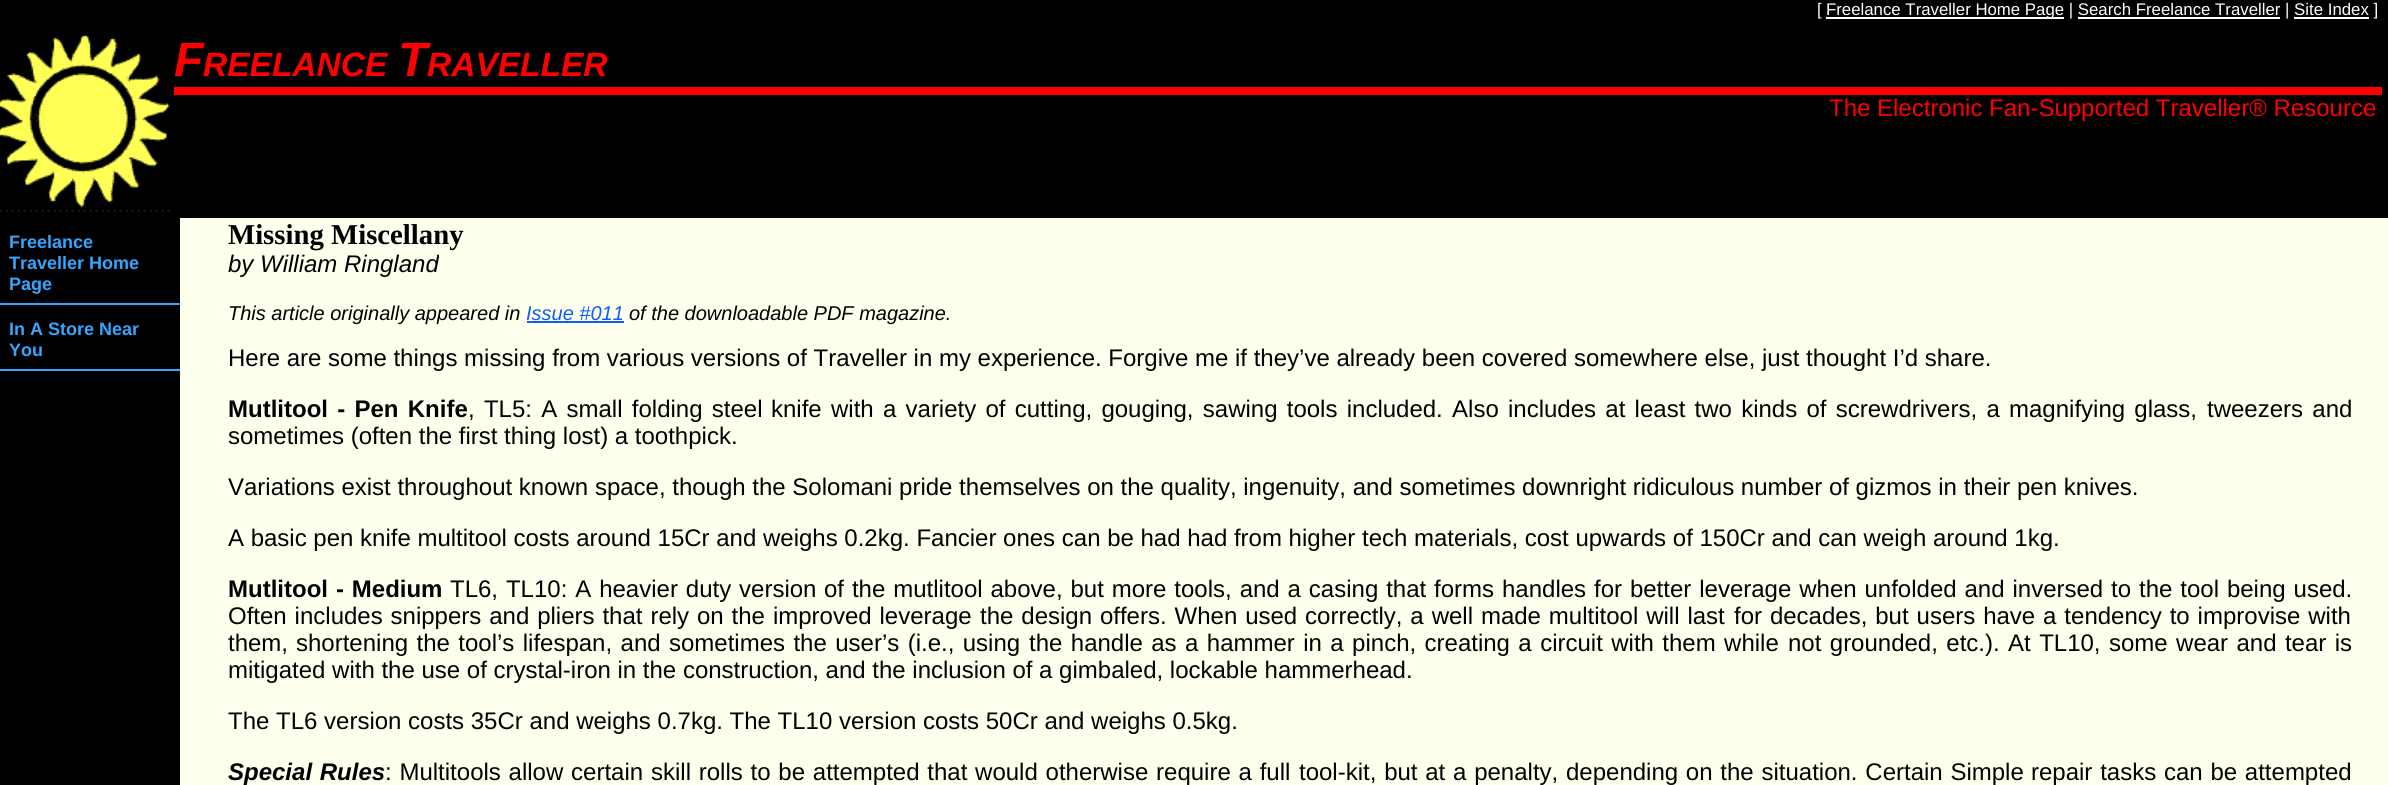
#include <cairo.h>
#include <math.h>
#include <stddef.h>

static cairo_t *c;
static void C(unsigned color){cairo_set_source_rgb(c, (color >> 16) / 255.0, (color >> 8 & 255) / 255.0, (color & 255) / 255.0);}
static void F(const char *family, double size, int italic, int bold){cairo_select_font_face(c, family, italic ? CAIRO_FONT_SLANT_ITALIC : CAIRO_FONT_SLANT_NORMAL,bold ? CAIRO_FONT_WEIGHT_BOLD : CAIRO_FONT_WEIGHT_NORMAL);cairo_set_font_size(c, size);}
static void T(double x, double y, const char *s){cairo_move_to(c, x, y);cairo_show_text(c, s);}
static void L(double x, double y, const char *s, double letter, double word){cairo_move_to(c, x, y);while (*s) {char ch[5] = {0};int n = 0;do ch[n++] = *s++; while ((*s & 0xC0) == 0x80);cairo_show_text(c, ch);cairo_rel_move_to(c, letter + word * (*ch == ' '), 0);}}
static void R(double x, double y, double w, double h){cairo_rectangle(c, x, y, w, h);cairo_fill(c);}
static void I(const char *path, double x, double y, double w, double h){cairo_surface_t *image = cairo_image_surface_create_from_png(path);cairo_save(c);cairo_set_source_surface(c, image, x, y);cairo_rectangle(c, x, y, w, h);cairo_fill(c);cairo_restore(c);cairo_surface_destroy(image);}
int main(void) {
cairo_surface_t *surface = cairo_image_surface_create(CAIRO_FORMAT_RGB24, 2388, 785);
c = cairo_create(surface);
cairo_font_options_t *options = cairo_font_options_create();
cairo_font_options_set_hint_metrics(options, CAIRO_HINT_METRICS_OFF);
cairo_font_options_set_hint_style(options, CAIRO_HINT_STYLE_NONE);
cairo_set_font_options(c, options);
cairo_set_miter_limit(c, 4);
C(0x000000);
cairo_paint(c);
F("Liberation Sans",16.8,0,0);
C(0xffffff);
T(1817,15,"[");
R(1826,17,238,2);
T(1826,15,"Freelance Traveller Home Page | Search Freelance Traveller | Site Index ]");
R(2078,17,202,2);
R(2294,17,75,2);
C(0xff0000);
R(174,87,2208,8);
I("1.png",0,35,174,177);
F("Liberation Sans",48,1,1);
T(174,76,"F");
F("Liberation Sans",33.5,1,1);
T(203,76,"REELANCE");
F("Liberation Sans",48,1,1);
T(398,76,"T");
F("Liberation Sans",33.5,1,1);
T(427,76,"RAVELLER");
F("Liberation Sans",24,0,0);
T(1829,116,"The Electronic Fan-Supported Traveller® Resource");
C(0x35a6ff);
R(0,303,180,2);
F("Liberation Sans",18,0,1);
T(9,248,"Freelance");
T(9,269,"Traveller Home");
T(9,290,"Page");
R(0,369,180,2);
T(9,335,"In A Store Near");
T(9,356,"You");
C(0xffffee);
R(180,218,2208,567);
F("Liberation Serif",28.75,0,1);
C(0x000000);
T(228,244,"Missing Miscellany");
F("Liberation Sans",24,1,0);
T(228,272,"by William Ringland");
F("Liberation Sans",20,1,0);
T(228,320,"This article originally appeared in");
C(0x0f5bff);
T(526,320,"Issue #011");
R(527,321,97,2);
C(0x000000);
T(629,320,"of the downloadable PDF magazine.");
F("Liberation Sans",24,0,0);
T(228,366,"Here are some things missing from various versions of Traveller in my experience. Forgive me if they’ve already been covered somewhere else, just thought I’d share.");
F("Liberation Sans",24,0,1);
L(228,417,"Mutlitool - Pen Knife",0,2.6);
F("Liberation Sans",24,0,0);
L(468,417,", TL5: A small folding steel",0,2.6);
L(771,417,"knife with a variety of cutting, gouging, sawing tools included. Also",0,2.6);
L(1508,417,"includes at least two kinds of screwdrivers, a magnifying glass,",0,2.6);
L(2207,417,"tweezers and",0,2.6);
T(228,444,"sometimes (often the first thing lost) a toothpick.");
T(228,495,"Variations exist throughout known space, though the Solomani pride themselves on the quality, ingenuity, and sometimes downright ridiculous number of gizmos in their pen knives.");
T(228,546,"A basic pen knife multitool costs around 15Cr and weighs 0.2kg. Fancier ones can be had had from higher tech materials, cost upwards of 150Cr and can weigh around 1kg.");
F("Liberation Sans",24,0,1);
L(228,597,"Mutlitool - Medium",0,1.25);
F("Liberation Sans",24,0,0);
L(450,597,"TL6, TL10: A heavier duty version",0,1.25);
L(824,597,"of the mutlitool above, but more tools, and a casing that forms handles",0,1.25);
L(1594,597,"for better leverage when unfolded and inversed to the tool being used.",0,1.25);
L(228,624,"Often includes snippers and pliers that rely on the improved leverage",0,1.25);
L(980,624,"the design offers. When used correctly, a well made multitool will last",0,1.25);
L(1734,624,"for decades, but users have a tendency to improvise with",0,1.25);
T(228,651,"them,");
L(296,651,"shortening the tool’s lifespan, and sometimes the user’s (i.e., using",0,1.75);
L(1029,651,"the handle as a hammer in a pinch, creating a circuit with them while",0,1.75);
L(1788,651,"not grounded, etc.). At TL10, some wear and tear is",0,1.75);
T(228,678,"mitigated with the use of crystal-iron in the construction, and the inclusion of a gimbaled, lockable hammerhead.");
T(228,729,"The TL6 version costs 35Cr and weighs 0.7kg. The TL10 version costs 50Cr and weighs 0.5kg.");
F("Liberation Sans",24,1,1);
L(228,780,"Special Rules",0,1);
F("Liberation Sans",24,0,0);
L(385,780,": Multitools allow certain",0,1.1);
L(651,780,"skill rolls to be attempted that would otherwise require a full",0,1.1);
L(1299,780,"tool-kit, but at a penalty, depending on the situation. Certain Simple",0,1.1);
L(2031,780,"repair tasks can be attempted",0,1.1);
cairo_surface_write_to_png(surface, "o.png");
cairo_font_options_destroy(options);
cairo_destroy(c);
cairo_surface_destroy(surface);
return 0;
}
